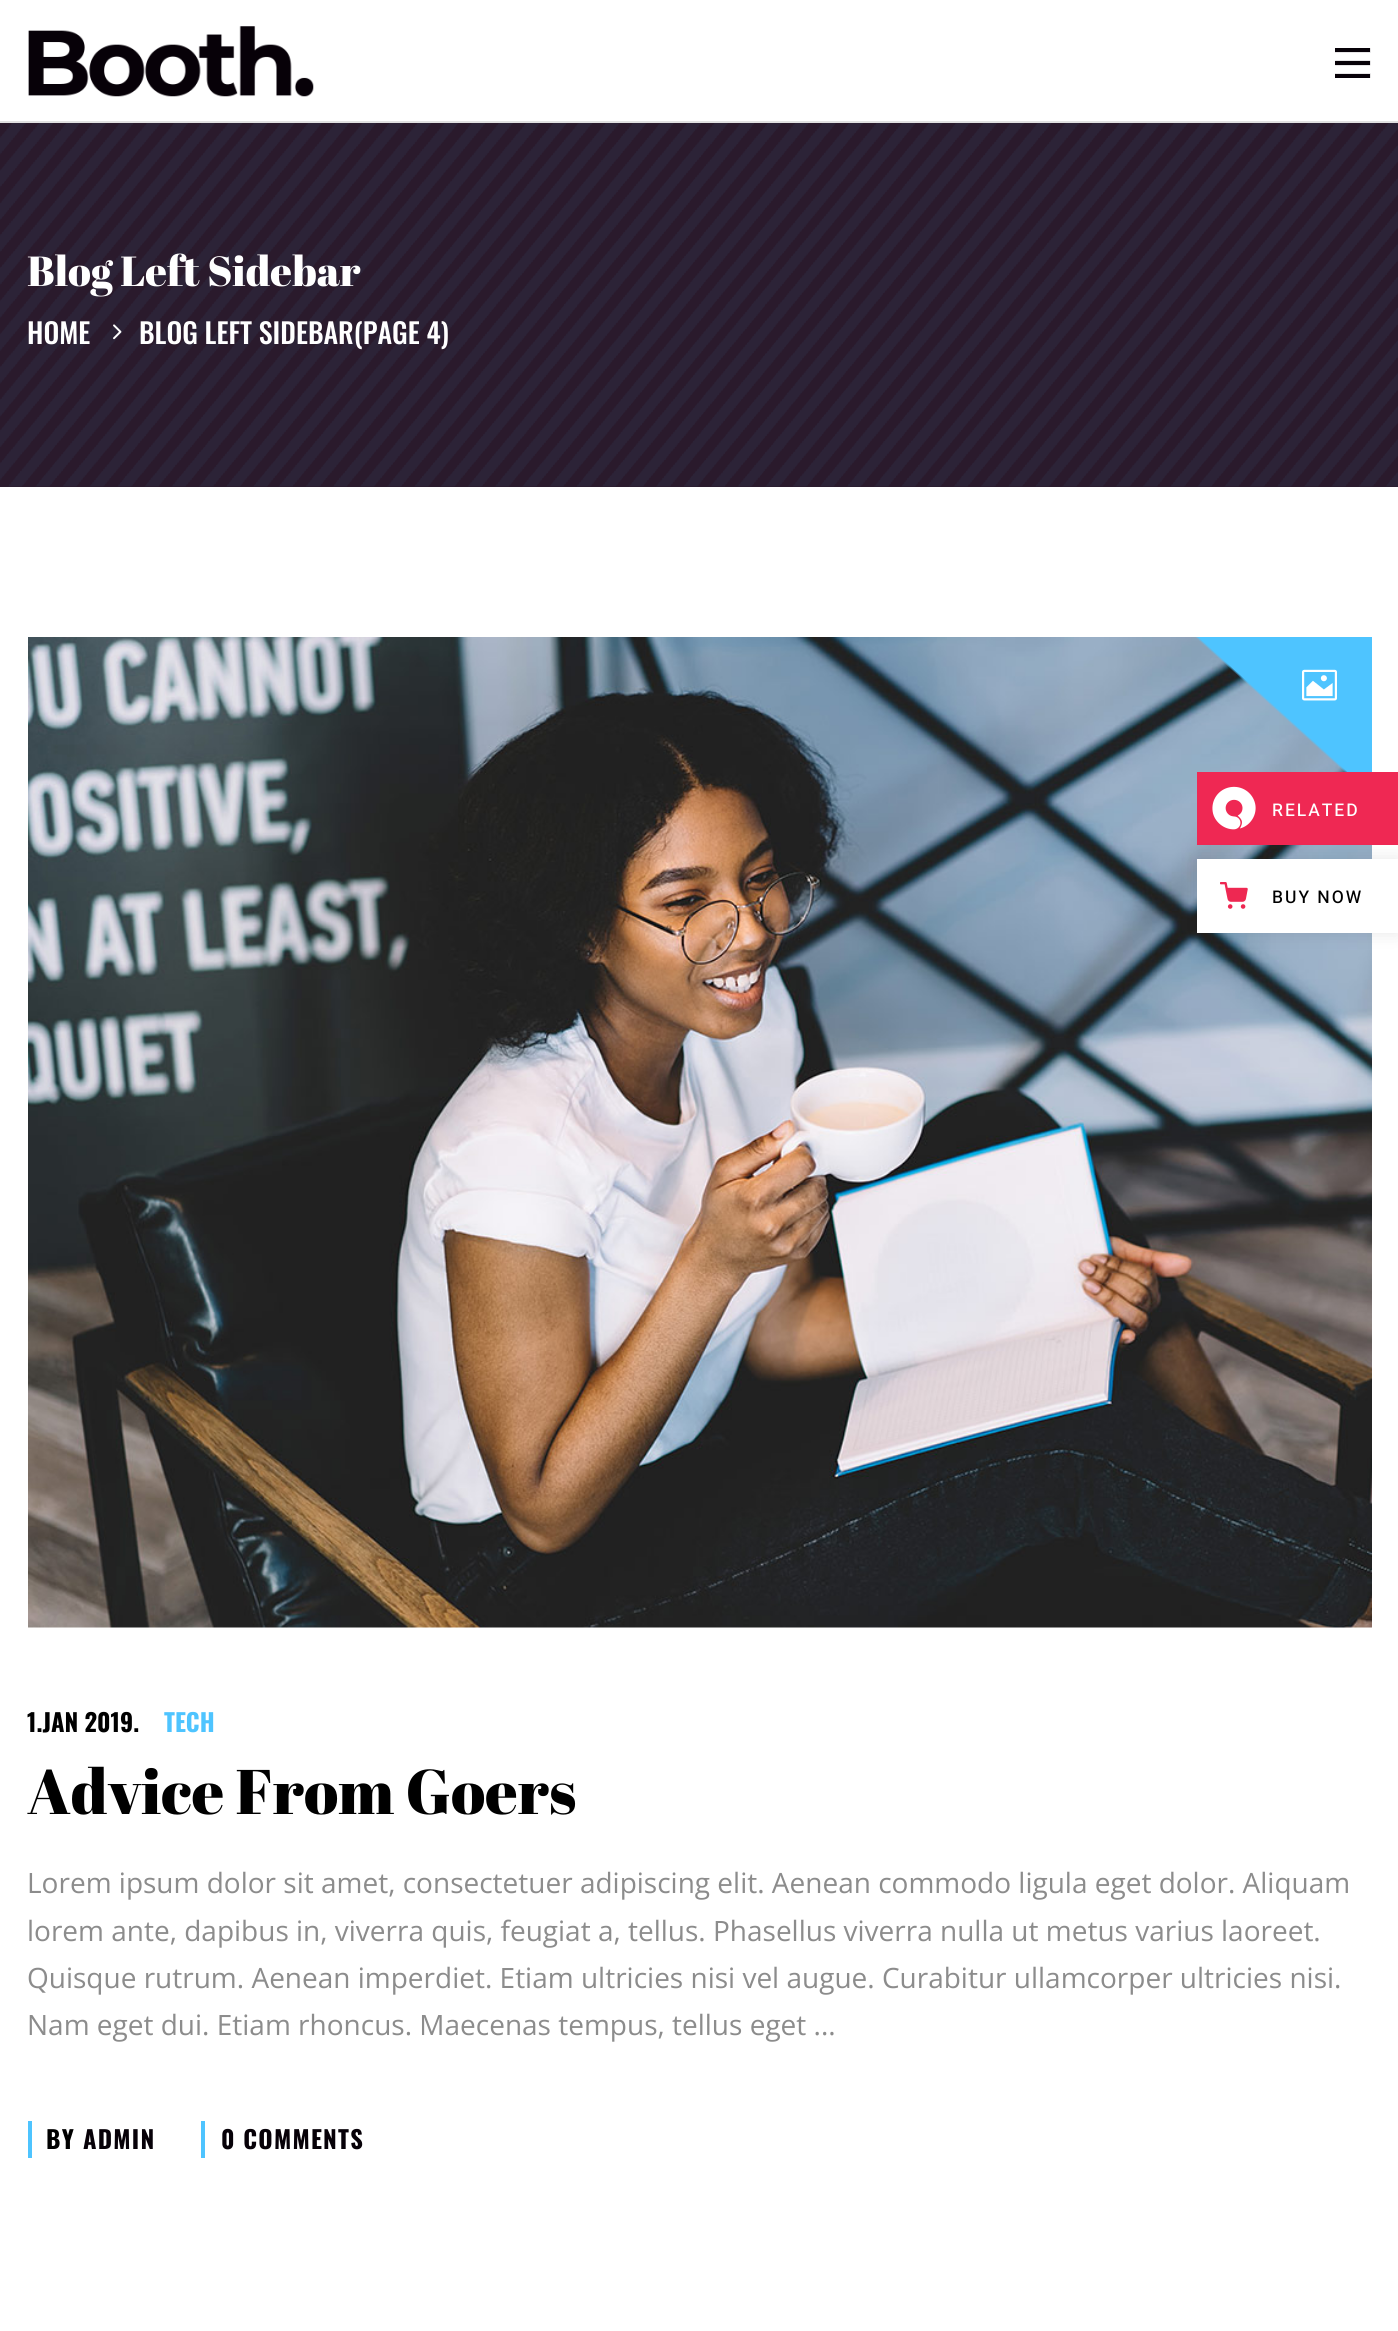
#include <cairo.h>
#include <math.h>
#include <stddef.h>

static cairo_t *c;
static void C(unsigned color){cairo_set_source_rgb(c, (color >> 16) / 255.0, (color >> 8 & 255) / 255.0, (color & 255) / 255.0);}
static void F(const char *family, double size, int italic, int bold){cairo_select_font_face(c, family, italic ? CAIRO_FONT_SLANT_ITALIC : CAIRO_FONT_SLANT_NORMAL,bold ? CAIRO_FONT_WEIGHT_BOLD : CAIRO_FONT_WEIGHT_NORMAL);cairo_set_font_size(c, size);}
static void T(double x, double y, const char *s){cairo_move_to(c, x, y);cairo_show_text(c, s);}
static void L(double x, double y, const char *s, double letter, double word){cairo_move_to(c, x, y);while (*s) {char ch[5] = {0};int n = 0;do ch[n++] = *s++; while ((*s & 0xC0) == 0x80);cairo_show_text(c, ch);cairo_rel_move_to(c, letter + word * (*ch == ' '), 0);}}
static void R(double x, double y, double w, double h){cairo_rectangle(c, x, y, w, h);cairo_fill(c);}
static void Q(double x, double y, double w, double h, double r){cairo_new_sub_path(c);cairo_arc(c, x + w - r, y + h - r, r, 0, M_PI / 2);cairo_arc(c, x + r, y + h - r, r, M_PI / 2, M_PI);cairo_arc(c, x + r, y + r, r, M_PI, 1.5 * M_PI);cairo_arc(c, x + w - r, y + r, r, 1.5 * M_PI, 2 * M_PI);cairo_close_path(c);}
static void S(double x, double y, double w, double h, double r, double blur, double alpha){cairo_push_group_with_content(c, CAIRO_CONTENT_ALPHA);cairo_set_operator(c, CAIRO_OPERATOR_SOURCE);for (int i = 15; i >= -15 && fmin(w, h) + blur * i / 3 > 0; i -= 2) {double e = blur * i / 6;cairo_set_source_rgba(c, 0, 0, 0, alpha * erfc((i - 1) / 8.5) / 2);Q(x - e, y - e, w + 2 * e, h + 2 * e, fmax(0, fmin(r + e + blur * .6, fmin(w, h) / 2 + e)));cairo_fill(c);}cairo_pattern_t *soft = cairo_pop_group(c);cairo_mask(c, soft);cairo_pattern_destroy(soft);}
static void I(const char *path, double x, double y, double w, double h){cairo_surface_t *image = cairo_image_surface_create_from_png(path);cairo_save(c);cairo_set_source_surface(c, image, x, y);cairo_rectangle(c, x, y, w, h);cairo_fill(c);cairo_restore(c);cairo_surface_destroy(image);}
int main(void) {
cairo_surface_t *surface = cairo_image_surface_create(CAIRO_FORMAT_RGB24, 1398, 2331);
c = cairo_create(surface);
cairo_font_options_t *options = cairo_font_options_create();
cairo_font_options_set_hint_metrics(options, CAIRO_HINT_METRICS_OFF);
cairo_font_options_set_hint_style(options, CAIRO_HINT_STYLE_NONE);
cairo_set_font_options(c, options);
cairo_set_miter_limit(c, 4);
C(0xffffff);
cairo_paint(c);
C(0xe1e1e1);
R(0,121,1398,2);
I("1.png",28,26,286,71);
I("2.png",1335,48,36,30);
C(0x2a1a2c);
R(0,486,1398,1);
I("3.png",0,123,1398,364);
F("Abril Fatface",42,0,0);
C(0xffffff);
T(27,286,"Blog Left Sidebar");
F("Oswald Medium",28,0,0);
T(27,344,"HOME");
I("4.png",113,324,9,16);
T(139,344,"BLOG LEFT SIDEBAR(PAGE 4)");
I("5.png",28,637,1344,991);
I("6.png",1302,669,35,32);
F("Oswald",24.5,0,1);
C(0x000000);
T(27,1732,"1.JAN 2019.");
C(0x4ec4ff);
T(164,1732,"TECH");
F("Abril Fatface",63,0,0);
C(0x000000);
T(27,1814,"Advice From Goers");
F("Open Sans",28,0,0);
C(0x8c8c8c);
T(27,1893,"Lorem ipsum dolor sit amet, consectetuer adipiscing elit. Aenean commodo ligula eget dolor. Aliquam");
T(27,1941,"lorem ante, dapibus in, viverra quis, feugiat a, tellus. Phasellus viverra nulla ut metus varius laoreet.");
T(27,1988,"Quisque rutrum. Aenean imperdiet. Etiam ultricies nisi vel augue. Curabitur ullamcorper ultricies nisi.");
T(27,2035,"Nam eget dui. Etiam rhoncus. Maecenas tempus, tellus eget ...");
C(0x4ec4ff);
R(28,2121,4,37);
F("Oswald",24.5,0,1);
C(0x000000);
L(46,2149,"BY",1.25,0);
C(0x070108);
L(83,2149,"ADMIN",1.25,0);
C(0x4ec4ff);
R(201,2121,4,37);
C(0x070108);
L(221,2149,"0 COMMENTS",1.25,0);
C(0xef2853);
R(1197,772,201,73);
I("7.png",1212,786,44,44);
F("Heebo Medium",17.5,0,0);
C(0xffffff);
L(1272,816,"RELATED",2,0);
C(0x000000);
S(1197,859,201,74,0,8.5,.1);
C(0xffffff);
R(1197,859,201,74);
I("8.png",1220,882,28,27);
C(0x000000);
L(1272,903,"BUY NOW",2,0);
cairo_surface_write_to_png(surface, "o.png");
cairo_font_options_destroy(options);
cairo_destroy(c);
cairo_surface_destroy(surface);
return 0;
}
